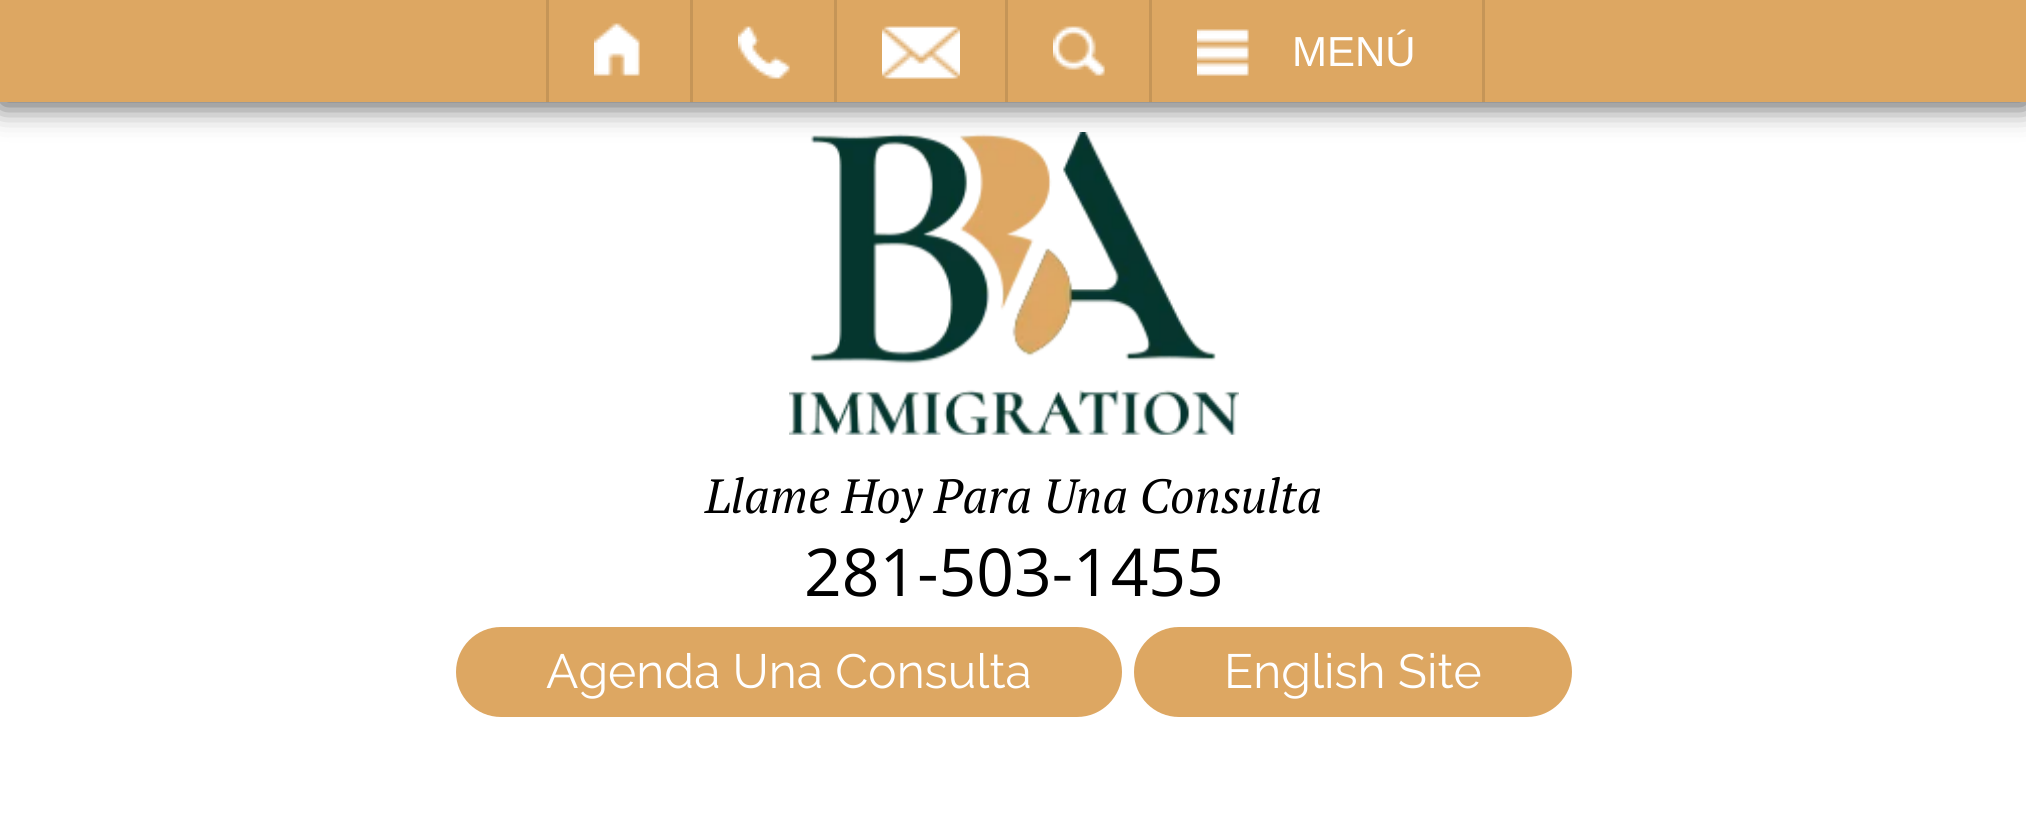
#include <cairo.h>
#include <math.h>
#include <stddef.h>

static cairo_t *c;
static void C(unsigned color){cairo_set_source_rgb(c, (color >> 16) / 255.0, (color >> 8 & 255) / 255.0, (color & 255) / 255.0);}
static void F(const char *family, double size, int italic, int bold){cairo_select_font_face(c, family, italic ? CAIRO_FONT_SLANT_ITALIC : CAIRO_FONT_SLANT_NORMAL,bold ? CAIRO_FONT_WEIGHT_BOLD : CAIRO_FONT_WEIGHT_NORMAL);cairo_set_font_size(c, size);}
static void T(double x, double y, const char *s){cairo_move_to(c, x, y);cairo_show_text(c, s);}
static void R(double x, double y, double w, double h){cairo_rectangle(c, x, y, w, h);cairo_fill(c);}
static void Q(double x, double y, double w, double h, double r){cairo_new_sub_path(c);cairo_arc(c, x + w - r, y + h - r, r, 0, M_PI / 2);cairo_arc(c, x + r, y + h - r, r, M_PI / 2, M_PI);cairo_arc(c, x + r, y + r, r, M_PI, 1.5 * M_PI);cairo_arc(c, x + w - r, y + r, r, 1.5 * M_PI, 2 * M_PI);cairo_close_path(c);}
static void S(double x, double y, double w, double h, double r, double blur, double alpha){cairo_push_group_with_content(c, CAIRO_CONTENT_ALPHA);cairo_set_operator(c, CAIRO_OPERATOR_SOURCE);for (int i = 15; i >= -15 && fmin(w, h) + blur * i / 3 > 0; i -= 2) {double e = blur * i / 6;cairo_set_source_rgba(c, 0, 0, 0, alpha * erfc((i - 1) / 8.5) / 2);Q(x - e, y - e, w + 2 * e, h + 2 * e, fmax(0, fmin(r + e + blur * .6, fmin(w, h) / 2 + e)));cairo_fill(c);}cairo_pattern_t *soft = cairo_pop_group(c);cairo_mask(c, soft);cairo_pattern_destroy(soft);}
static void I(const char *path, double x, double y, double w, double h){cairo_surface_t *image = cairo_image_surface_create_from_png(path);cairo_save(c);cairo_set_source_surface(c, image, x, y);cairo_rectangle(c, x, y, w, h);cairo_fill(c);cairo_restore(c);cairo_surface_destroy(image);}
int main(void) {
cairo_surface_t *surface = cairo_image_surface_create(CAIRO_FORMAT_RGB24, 2026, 828);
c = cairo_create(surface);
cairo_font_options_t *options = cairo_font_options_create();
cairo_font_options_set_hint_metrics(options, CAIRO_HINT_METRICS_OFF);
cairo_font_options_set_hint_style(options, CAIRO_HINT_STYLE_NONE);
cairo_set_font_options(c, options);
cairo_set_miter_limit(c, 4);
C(0xffffff);
cairo_paint(c);
I("6.png",789,132,450,303);
C(0x000000);
S(0,3,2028,102,0,15,.7);
C(0xdda762);
R(0,0,2026,102);
C(0xc59557);
R(690,0,3,102);
R(546,0,3,102);
I("1.png",594,23,46,53);
R(834,0,3,102);
I("2.png",738,26,52,53);
R(1005,0,3,102);
I("3.png",882,26,78,53);
R(1149,0,3,102);
I("4.png",1053,26,52,50);
R(1482,0,3,102);
I("5.png",1197,29,52,47);
F("Liberation Sans",42,0,0);
C(0xffffff);
T(1292,66,"MENÚ");
F("PT Serif",48,1,0);
C(0x000000);
T(705,513,"Llame Hoy Para Una Consulta");
F("Open Sans",66,0,0);
T(804,596,"281-503-1455");
C(0xdda762);
Q(456,627,666,90,45);
cairo_fill(c);
F("Raleway Thin",48,0,0);
C(0xffffff);
T(546,688,"Agenda Una Consulta");
C(0xdda762);
Q(1134,627,438,90,45);
cairo_fill(c);
C(0xffffff);
T(1224,688,"English Site");
cairo_surface_write_to_png(surface, "o.png");
cairo_font_options_destroy(options);
cairo_destroy(c);
cairo_surface_destroy(surface);
return 0;
}
